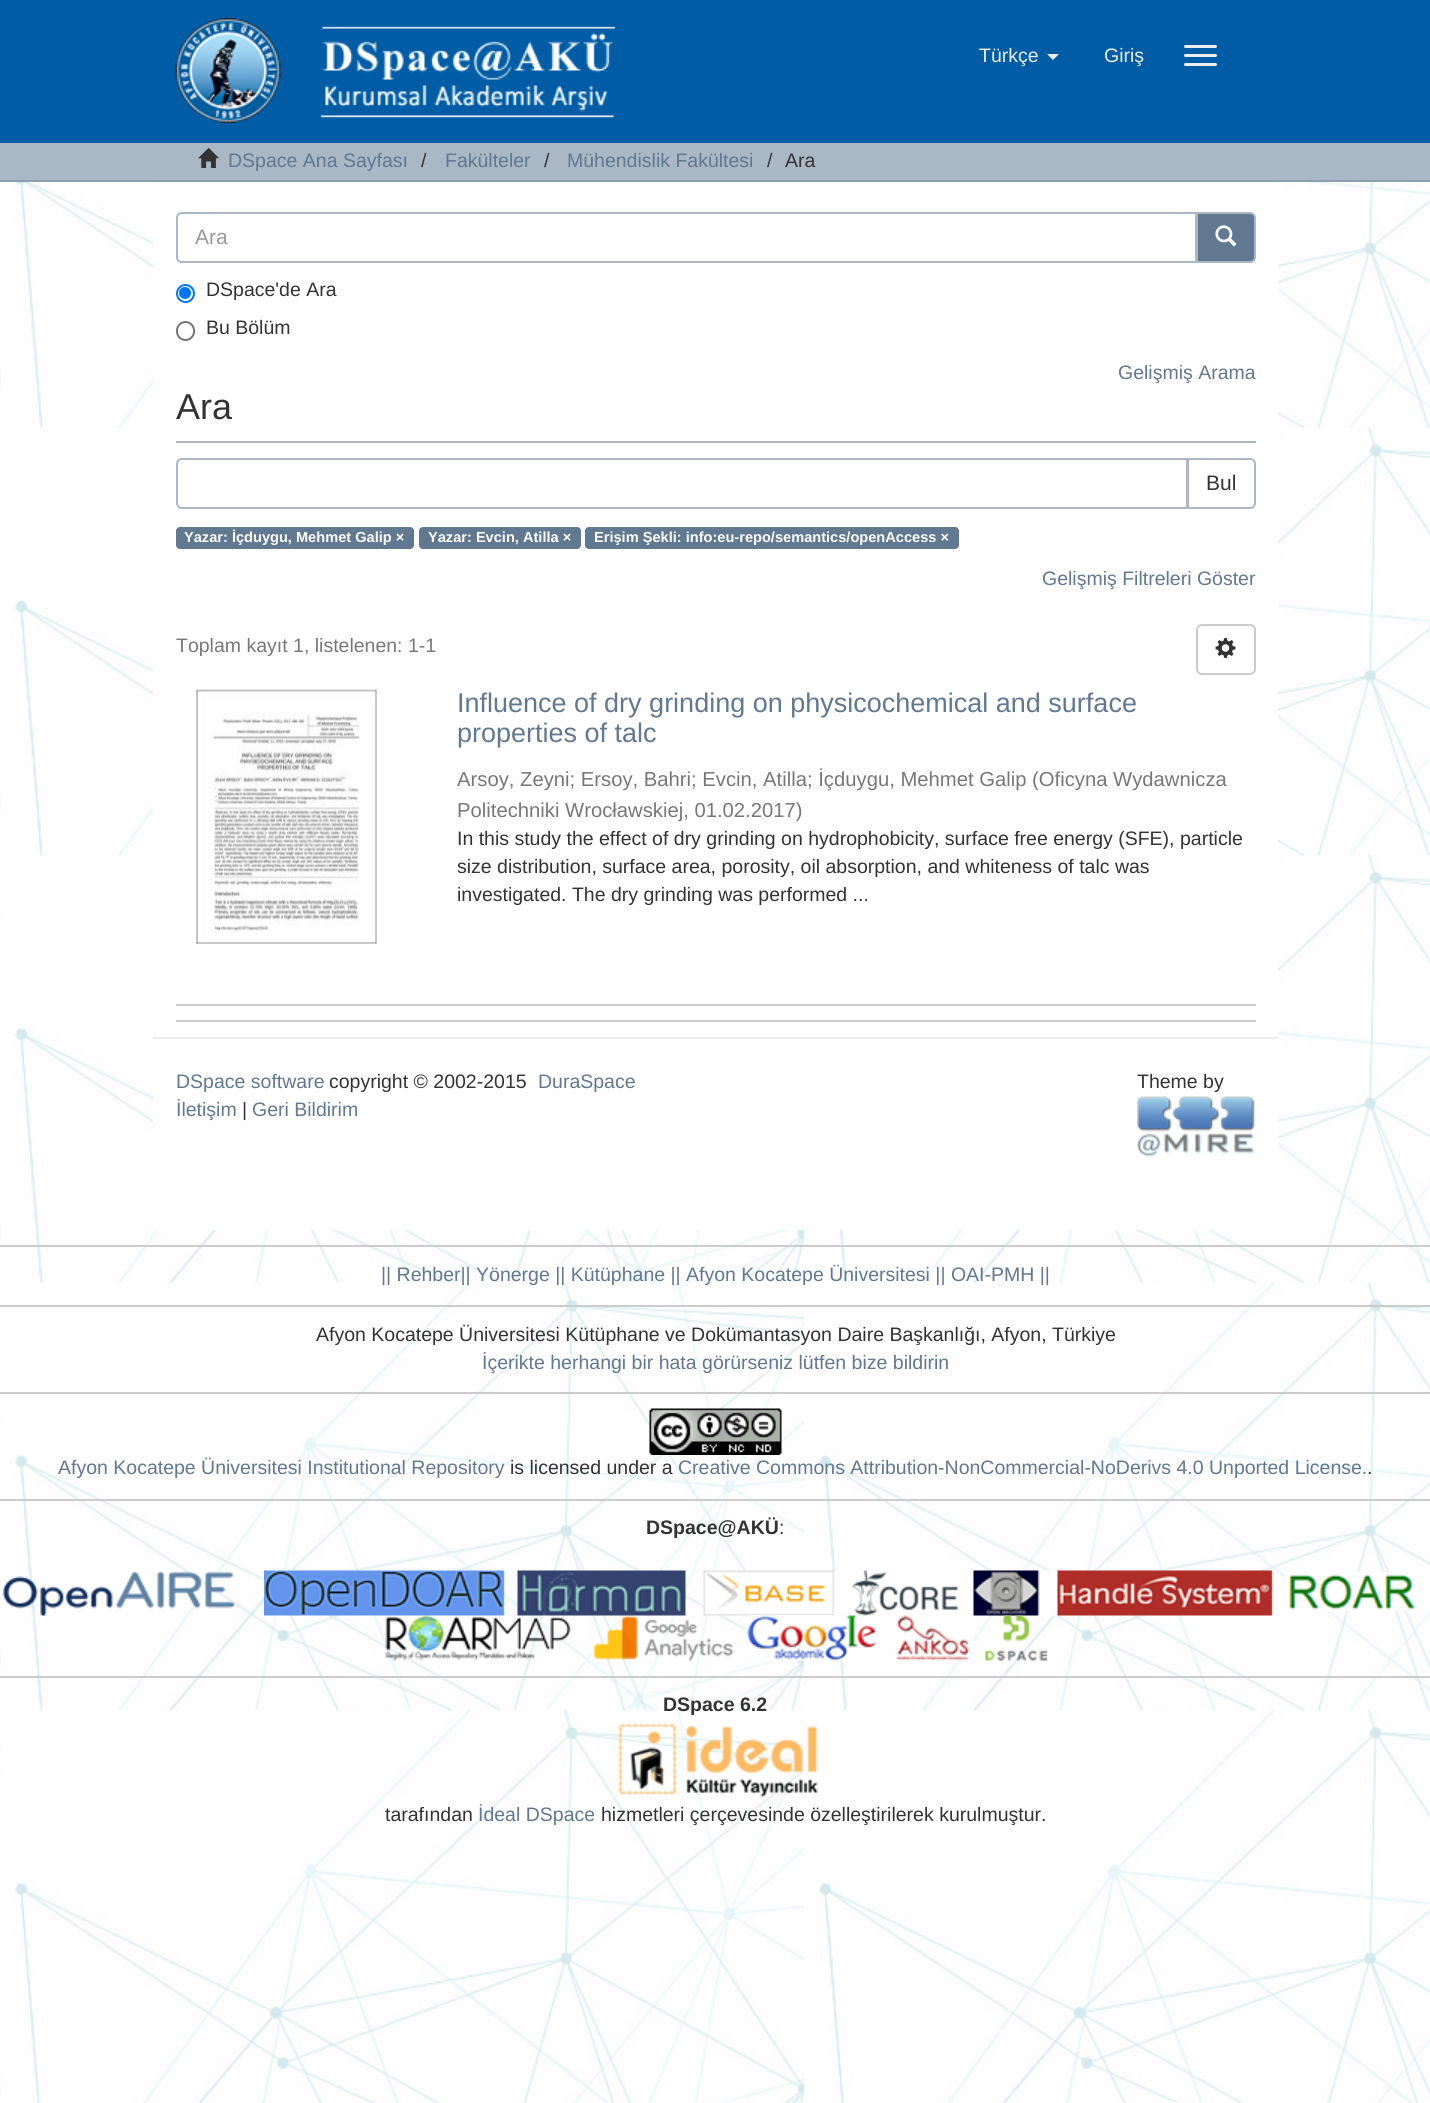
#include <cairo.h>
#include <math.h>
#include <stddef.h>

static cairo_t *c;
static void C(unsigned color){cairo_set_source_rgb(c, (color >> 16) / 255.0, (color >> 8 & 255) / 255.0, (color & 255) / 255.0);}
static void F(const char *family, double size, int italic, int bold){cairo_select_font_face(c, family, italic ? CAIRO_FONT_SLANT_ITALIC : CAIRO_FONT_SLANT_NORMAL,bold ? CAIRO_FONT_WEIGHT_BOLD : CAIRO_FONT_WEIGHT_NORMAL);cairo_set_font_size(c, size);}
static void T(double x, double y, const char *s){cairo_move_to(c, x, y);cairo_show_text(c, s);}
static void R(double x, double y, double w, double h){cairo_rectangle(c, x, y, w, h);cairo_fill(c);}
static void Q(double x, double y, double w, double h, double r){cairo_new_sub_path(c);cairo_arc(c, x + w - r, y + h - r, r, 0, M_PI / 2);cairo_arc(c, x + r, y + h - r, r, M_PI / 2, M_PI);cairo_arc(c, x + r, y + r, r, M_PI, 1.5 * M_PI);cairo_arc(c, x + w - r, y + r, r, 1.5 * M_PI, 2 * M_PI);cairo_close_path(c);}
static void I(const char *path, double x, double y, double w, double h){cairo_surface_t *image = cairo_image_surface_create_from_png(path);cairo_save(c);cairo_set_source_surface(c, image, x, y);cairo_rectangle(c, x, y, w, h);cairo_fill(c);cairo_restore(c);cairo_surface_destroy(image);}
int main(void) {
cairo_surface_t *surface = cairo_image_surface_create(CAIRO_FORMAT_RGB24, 1430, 2103);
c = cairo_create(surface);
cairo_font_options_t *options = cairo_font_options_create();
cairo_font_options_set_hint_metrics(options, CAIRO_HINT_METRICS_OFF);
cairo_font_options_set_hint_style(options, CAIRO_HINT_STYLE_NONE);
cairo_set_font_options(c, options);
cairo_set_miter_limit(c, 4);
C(0xffffff);
cairo_paint(c);
I("1.png",0,182,1430,1921);
C(0x005ca4);
R(0,0,1430,143);
I("2.png",175,18,441,105);
F("Liberation Sans",19.5,0,0);
C(0xeeeeee);
T(979,62,"Türkçe");
cairo_new_path(c);
cairo_move_to(c,1047,54);
cairo_line_to(c,1059,54);
cairo_line_to(c,1053,60);
cairo_close_path(c);
cairo_fill(c);
T(1104,62,"Giriş");
Q(1184,45,33,3,1.5);
cairo_fill(c);
Q(1184,54,33,3,1.5);
cairo_fill(c);
Q(1184,63,33,3,1.5);
cairo_fill(c);
C(0xaab8c6);
R(0,143,1430,37);
C(0x8b9eb2);
R(0,180,1430,2);
I("3.png",198,147,21,21);
C(0x607890);
T(228,167,"DSpace Ana Sayfası");
C(0x333333);
T(421,167,"/");
C(0x607890);
T(445,167,"Fakülteler");
C(0x333333);
T(544,167,"/");
C(0x607890);
T(567,167,"Mühendislik Fakültesi");
C(0x333333);
T(767,167,"/");
T(785,167,"Ara");
C(0xffffff);
R(153,182,1125,1048);
C(0x607890);
cairo_new_path(c);
cairo_move_to(c,1197,213);
cairo_line_to(c,1250,213);
cairo_curve_to(c,1253,213,1255,215,1255,218);
cairo_line_to(c,1255,257);
cairo_curve_to(c,1255,260,1253,262,1250,262);
cairo_line_to(c,1197,262);
cairo_close_path(c);
cairo_fill_preserve(c);
C(0xaab8c6);
cairo_stroke(c);
C(0xffffff);
cairo_new_path(c);
cairo_move_to(c,182,213);
cairo_line_to(c,1196,213);
cairo_line_to(c,1196,262);
cairo_line_to(c,182,262);
cairo_curve_to(c,179,262,177,260,177,257);
cairo_line_to(c,177,218);
cairo_curve_to(c,177,215,179,213,182,213);
cairo_close_path(c);
cairo_fill_preserve(c);
C(0xaab8c6);
cairo_stroke(c);
F("Liberation Sans",21,0,0);
C(0x999999);
T(195,244,"Ara");
I("4.png",1215,225,22,22);
cairo_arc(c,185.5,293.5,8.5,0,2 * M_PI);
C(0x0075ff);
cairo_stroke(c);
cairo_arc(c,185,293,6,0,2 * M_PI);
cairo_fill(c);
F("Liberation Sans",19.5,0,0);
C(0x333333);
T(206,296,"DSpace'de Ara");
Q(177,322,17,18,8.5);
C(0x767676);
cairo_stroke(c);
C(0x333333);
T(206,334,"Bu Bölüm");
C(0x607890);
T(1118,379,"Gelişmiş Arama");
C(0xaab8c6);
R(176,441,1080,2);
F("Liberation Sans",36,0,0);
C(0x333333);
T(176,419,"Ara");
cairo_new_path(c);
cairo_move_to(c,1188,459);
cairo_line_to(c,1250,459);
cairo_curve_to(c,1253,459,1255,461,1255,464);
cairo_line_to(c,1255,503);
cairo_curve_to(c,1255,506,1253,508,1250,508);
cairo_line_to(c,1188,508);
cairo_close_path(c);
C(0xaab8c6);
cairo_stroke(c);
C(0xffffff);
cairo_new_path(c);
cairo_move_to(c,182,459);
cairo_line_to(c,1187,459);
cairo_line_to(c,1187,508);
cairo_line_to(c,182,508);
cairo_curve_to(c,179,508,177,506,177,503);
cairo_line_to(c,177,464);
cairo_curve_to(c,177,461,179,459,182,459);
cairo_close_path(c);
cairo_fill_preserve(c);
C(0xaab8c6);
cairo_stroke(c);
F("Liberation Sans",21,0,0);
C(0x333333);
T(1206,490,"Bul");
C(0x607890);
Q(176,527,238,22,4);
cairo_fill(c);
F("Liberation Sans",14.6,0,1);
C(0xffffff);
T(184,542,"Yazar: İçduygu, Mehmet Galip ×");
C(0x607890);
Q(419,527,162,22,4);
cairo_fill(c);
C(0xffffff);
T(428,542,"Yazar: Evcin, Atilla ×");
C(0x607890);
Q(585,527,374,22,4);
cairo_fill(c);
C(0xffffff);
T(594,542,"Erişim Şekli: info:eu-repo/semantics/openAccess ×");
F("Liberation Sans",19.5,0,0);
C(0x607890);
T(1042,585,"Gelişmiş Filtreleri Göster");
C(0x777777);
T(176,652,"Toplam kayıt 1, listelenen: 1-1");
Q(1197,625,58,49,5);
C(0xcccccc);
cairo_stroke(c);
I("5.png",1215,637,21,21);
I("6.png",196,689,181,255);
F("Liberation Sans",27,0,0);
C(0x607890);
T(457,712,"Influence of dry grinding on physicochemical and surface");
T(457,742,"properties of talc");
F("Liberation Sans",20.25,0,0);
C(0x777777);
T(457,786,"Arsoy, Zeyni; Ersoy, Bahri; Evcin, Atilla; İçduygu, Mehmet Galip (Oficyna Wydawnicza");
T(457,817,"Politechniki Wrocławskiej, 01.02.2017)");
F("Liberation Sans",19.5,0,0);
C(0x333333);
T(457,845,"In this study the effect of dry grinding on hydrophobicity, surface free energy (SFE), particle");
T(457,873,"size distribution, surface area, porosity, oil absorption, and whiteness of talc was");
T(457,901,"investigated. The dry grinding was performed ...");
C(0xcccccc);
R(176,1004,1080,2);
R(176,1020,1080,2);
C(0xeeeeee);
R(153,1037,1125,2);
C(0x607890);
T(176,1088,"DSpace software");
C(0x333333);
T(329,1088,"copyright © 2002-2015");
C(0x607890);
T(538,1088,"DuraSpace");
T(176,1116,"İletişim");
C(0x333333);
T(242,1116,"|");
C(0x607890);
T(252,1116,"Geri Bildirim");
C(0x333333);
T(1137,1088,"Theme by");
I("7.png",1137,1096,119,62);
C(0xcccccc);
R(0,1245,1430,2);
C(0x607890);
T(381,1281,"|| Rehber|| Yönerge || Kütüphane || Afyon Kocatepe Üniversitesi || OAI-PMH ||");
C(0xcccccc);
R(0,1305,1430,2);
C(0x333333);
T(316,1341,"Afyon Kocatepe Üniversitesi Kütüphane ve Dokümantasyon Daire Başkanlığı, Afyon, Türkiye");
C(0x607890);
T(482,1369,"İçerikte herhangi bir hata görürseniz lütfen bize bildirin");
C(0xcccccc);
R(0,1392,1430,2);
I("8.png",649,1408,133,47);
C(0x607890);
T(58,1474,"Afyon Kocatepe Üniversitesi Institutional Repository");
C(0x333333);
T(510,1474,"is licensed under a");
C(0x607890);
T(678,1474,"Creative Commons Attribution-NonCommercial-NoDerivs 4.0 Unported License.");
C(0x333333);
T(1367,1474,".");
C(0xcccccc);
R(0,1499,1430,2);
F("Liberation Sans",19.5,0,1);
C(0x333333);
T(646,1534,"DSpace@AKÜ");
F("Liberation Sans",19.5,0,0);
T(779,1534,":");
I("9.png",2,1571,233,45);
I("10.png",264,1570,241,46);
I("11.png",517,1570,169,46);
I("12.png",703,1570,136,46);
I("13.png",851,1570,108,46);
I("14.png",973,1570,85,46);
I("15.png",1057,1570,216,46);
I("16.png",1285,1571,130,41);
I("17.png",385,1615,186,46);
I("18.png",593,1615,141,46);
I("19.png",747,1615,130,46);
I("20.png",896,1615,78,46);
I("21.png",985,1615,63,46);
C(0xcccccc);
R(0,1676,1430,2);
F("Liberation Sans",19.5,0,1);
C(0x333333);
T(663,1711,"DSpace 6.2");
I("22.png",618,1723,200,75);
F("Liberation Sans",19.5,0,0);
T(385,1821,"tarafından");
C(0x607890);
T(478,1821,"İdeal DSpace");
C(0x333333);
T(601,1821,"hizmetleri çerçevesinde özelleştirilerek kurulmuştur.");
cairo_surface_write_to_png(surface, "o.png");
cairo_font_options_destroy(options);
cairo_destroy(c);
cairo_surface_destroy(surface);
return 0;
}
